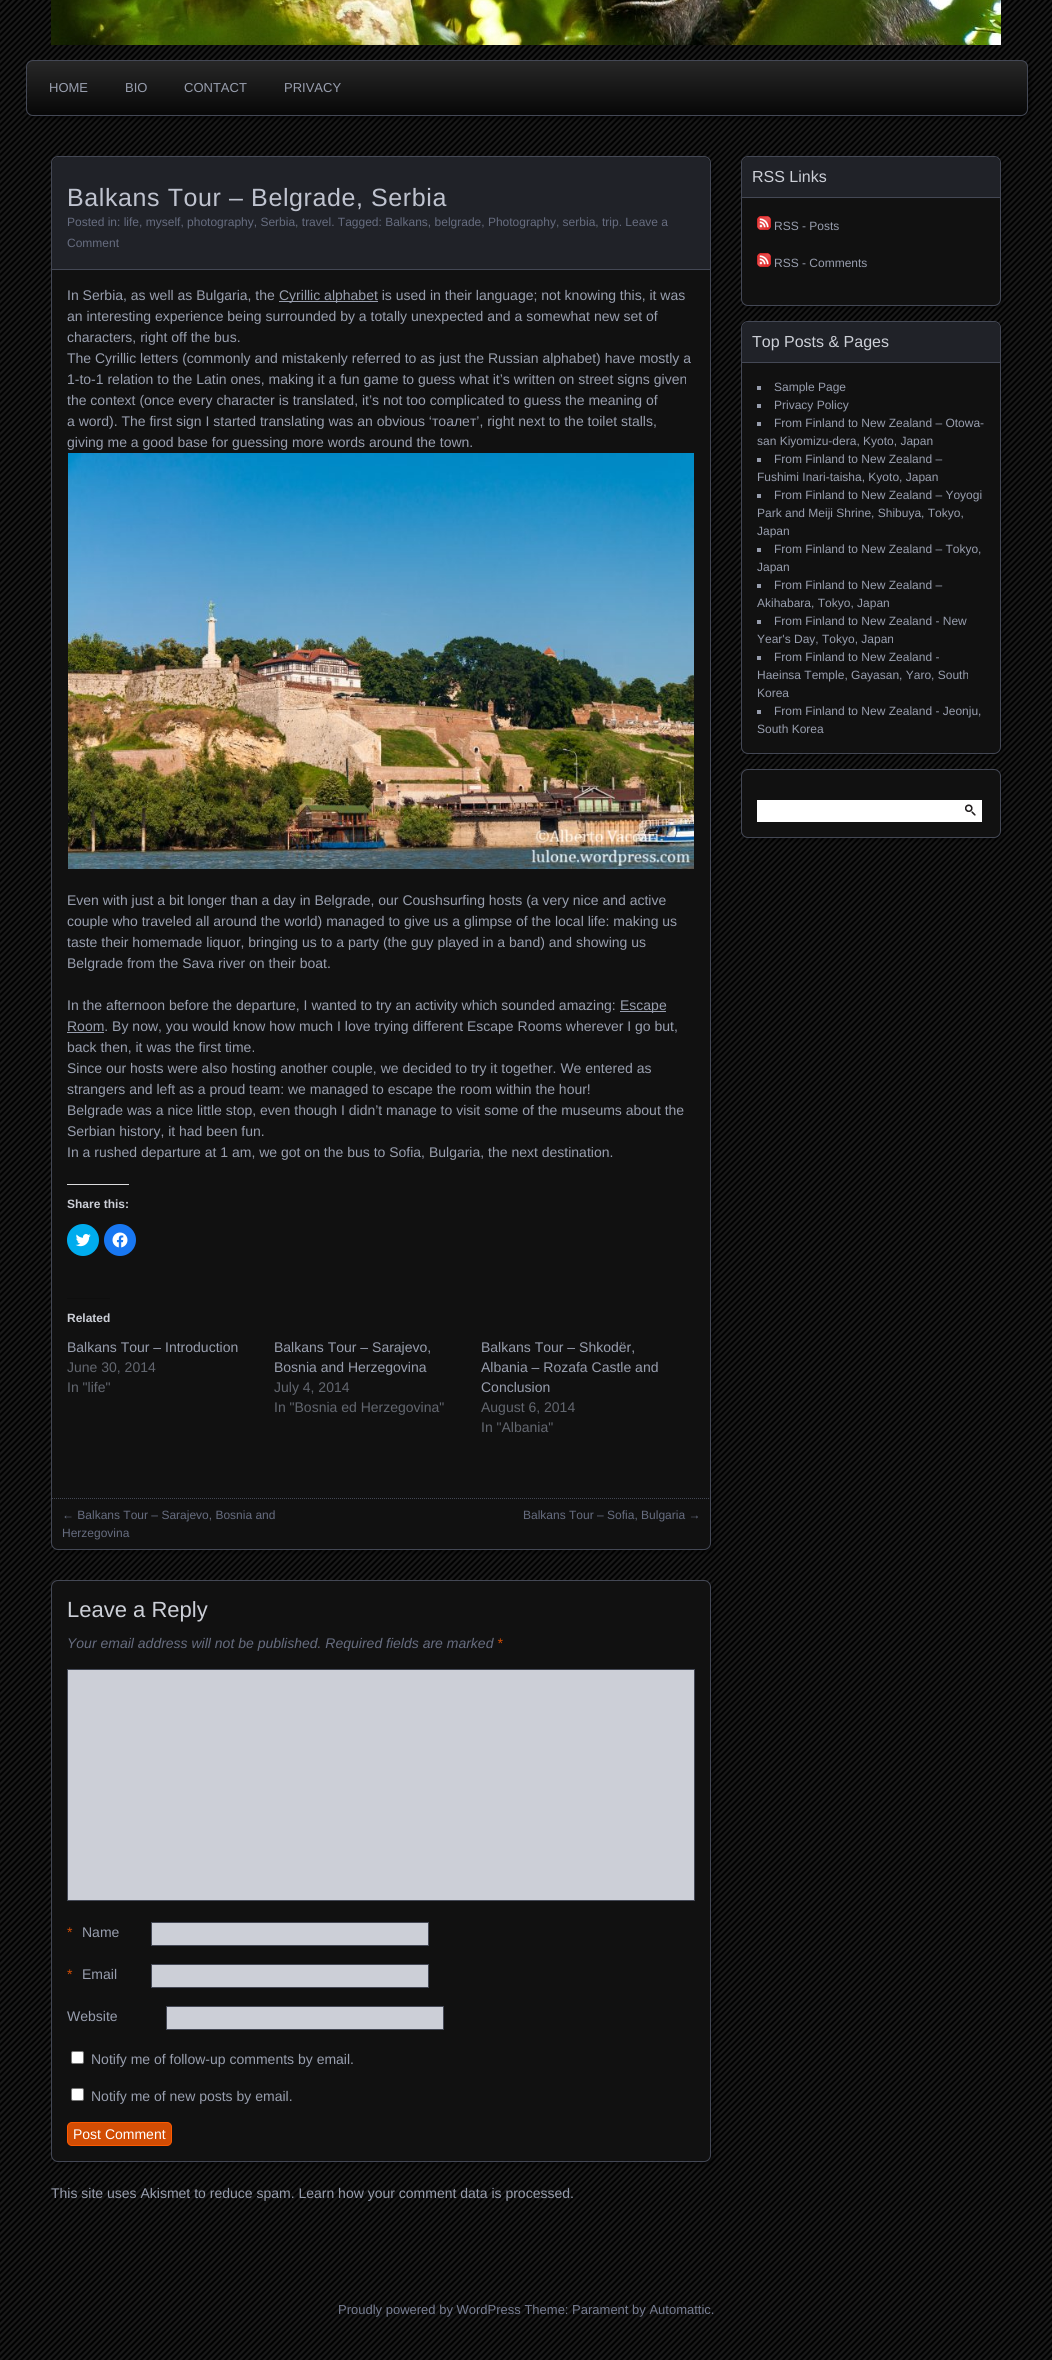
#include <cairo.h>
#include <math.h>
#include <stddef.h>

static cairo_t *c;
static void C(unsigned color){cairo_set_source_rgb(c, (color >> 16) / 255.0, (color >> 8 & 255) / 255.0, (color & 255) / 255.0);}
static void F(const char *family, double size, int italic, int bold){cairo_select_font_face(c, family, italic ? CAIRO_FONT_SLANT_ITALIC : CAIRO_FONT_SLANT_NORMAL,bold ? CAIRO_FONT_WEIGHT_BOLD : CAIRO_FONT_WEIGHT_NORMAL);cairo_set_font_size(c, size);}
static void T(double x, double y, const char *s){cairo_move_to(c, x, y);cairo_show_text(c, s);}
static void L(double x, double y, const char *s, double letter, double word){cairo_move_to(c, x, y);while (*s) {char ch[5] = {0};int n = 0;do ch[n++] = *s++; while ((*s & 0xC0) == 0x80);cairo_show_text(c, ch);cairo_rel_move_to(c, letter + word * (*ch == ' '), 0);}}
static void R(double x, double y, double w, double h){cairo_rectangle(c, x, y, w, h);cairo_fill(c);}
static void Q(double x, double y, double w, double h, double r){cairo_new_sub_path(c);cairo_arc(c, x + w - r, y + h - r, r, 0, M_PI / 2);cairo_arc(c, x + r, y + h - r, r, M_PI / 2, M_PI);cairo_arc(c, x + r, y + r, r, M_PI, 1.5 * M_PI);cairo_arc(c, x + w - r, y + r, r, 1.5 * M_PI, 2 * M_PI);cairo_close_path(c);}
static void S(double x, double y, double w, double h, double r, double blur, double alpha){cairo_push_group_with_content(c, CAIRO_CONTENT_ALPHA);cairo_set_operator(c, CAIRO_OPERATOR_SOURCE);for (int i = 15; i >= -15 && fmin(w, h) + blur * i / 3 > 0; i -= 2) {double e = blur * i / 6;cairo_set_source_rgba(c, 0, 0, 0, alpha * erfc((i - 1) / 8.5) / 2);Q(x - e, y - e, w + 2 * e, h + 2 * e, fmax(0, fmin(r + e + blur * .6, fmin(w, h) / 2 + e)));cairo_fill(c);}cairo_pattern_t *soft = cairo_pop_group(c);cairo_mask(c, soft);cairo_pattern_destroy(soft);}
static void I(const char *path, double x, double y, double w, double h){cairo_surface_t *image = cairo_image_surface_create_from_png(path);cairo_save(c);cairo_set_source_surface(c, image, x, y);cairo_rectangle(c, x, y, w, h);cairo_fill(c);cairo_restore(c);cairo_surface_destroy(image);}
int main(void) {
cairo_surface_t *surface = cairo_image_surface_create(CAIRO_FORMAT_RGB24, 1052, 2360);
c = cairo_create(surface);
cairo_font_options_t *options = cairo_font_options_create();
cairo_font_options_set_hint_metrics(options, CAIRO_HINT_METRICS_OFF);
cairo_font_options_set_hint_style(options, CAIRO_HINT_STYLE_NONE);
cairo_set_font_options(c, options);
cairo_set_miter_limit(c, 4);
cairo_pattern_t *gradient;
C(0x000000);
cairo_paint(c);
I("1.png",0,0,1052,2360);
I("2.png",51,0,950,45);
S(29,63,1002,56,7,2,.45);
cairo_save(c);
Q(26,60,1002,56,7);
cairo_clip(c);
gradient = cairo_pattern_create_linear(527,61,527,115);
cairo_pattern_add_color_stop_rgba(gradient,.01,0.153,0.153,0.153,1);
cairo_pattern_add_color_stop_rgba(gradient,1,0.027,0.027,0.027,1);
cairo_set_source(c,gradient);
cairo_pattern_destroy(gradient);
R(26,61,1002,54);
cairo_restore(c);
Q(26.5,60.5,1001,55,6.5);
C(0x444855);
cairo_set_line_width(c,1);
cairo_stroke(c);
F("Liberation Sans",13,0,0);
C(0x989eae);
T(49,92,"HOME");
T(125,92,"BIO");
T(184,92,"CONTACT");
T(284,92,"PRIVACY");
C(0x000000);
S(54,159,660,1394,7,2,.45);
C(0x111111);
Q(51.5,156.5,659,1393,6.5);
cairo_fill_preserve(c);
C(0x444855);
cairo_stroke(c);
C(0x202228);
cairo_new_path(c);
cairo_move_to(c,59,157);
cairo_line_to(c,703,157);
cairo_curve_to(c,707,157,710,160,710,164);
cairo_line_to(c,710,270);
cairo_line_to(c,52,270);
cairo_line_to(c,52,164);
cairo_curve_to(c,52,160,55,157,59,157);
cairo_close_path(c);
cairo_fill(c);
C(0x444855);
R(52,269,658,1);
F("Liberation Sans",25,0,0);
C(0xbfc3cf);
L(67,206,"Balkans Tour – Belgrade, Serbia",.6,0);
F("Liberation Sans",12,0,0);
C(0x666c7f);
T(67,226,"Posted in: life, myself, photography, Serbia, travel. Tagged: Balkans, belgrade, Photography, serbia, trip. Leave a");
T(67,247,"Comment");
F("Liberation Sans",14,0,0);
C(0x989eae);
T(67,300,"In Serbia, as well as Bulgaria, the");
R(279,301,99,1);
T(279,300,"Cyrillic alphabet is used in their language; not knowing this, it was");
T(67,321,"an interesting experience being surrounded by a totally unexpected and a somewhat new set of");
T(67,342,"characters, right off the bus.");
T(67,363,"The Cyrillic letters (commonly and mistakenly referred to as just the Russian alphabet) have mostly a");
T(67,384,"1-to-1 relation to the Latin ones, making it a fun game to guess what it’s written on street signs given");
T(67,405,"the context (once every character is translated, it’s not too complicated to guess the meaning of");
T(67,426,"a word). The first sign I started translating was an obvious ‘тоалет’, right next to the toilet stalls,");
T(67,447,"giving me a good base for guessing more words around the town.");
I("3.png",68,453,626,416);
T(67,905,"Even with just a bit longer than a day in Belgrade, our Coushsurfing hosts (a very nice and active");
T(67,926,"couple who traveled all around the world) managed to give us a glimpse of the local life: making us");
T(67,947,"taste their homemade liquor, bringing us to a party (the guy played in a band) and showing us");
T(67,968,"Belgrade from the Sava river on their boat.");
T(67,1010,"In the afternoon before the departure, I wanted to try an activity which sounded amazing:");
R(620,1011,46,1);
T(620,1010,"Escape");
R(67,1032,37,1);
T(67,1031,"Room. By now, you would know how much I love trying different Escape Rooms wherever I go but,");
T(67,1052,"back then, it was the first time.");
T(67,1073,"Since our hosts were also hosting another couple, we decided to try it together. We entered as");
T(67,1094,"strangers and left as a proud team: we managed to escape the room within the hour!");
T(67,1115,"Belgrade was a nice little stop, even though I didn’t manage to visit some of the museums about the");
T(67,1136,"Serbian history, it had been fun.");
T(67,1157,"In a rushed departure at 1 am, we got on the bus to Sofia, Bulgaria, the next destination.");
C(0xdcdcde);
R(67,1184,62,1);
F("Liberation Sans",12,0,1);
C(0xcccfd7);
T(67,1208,"Share this:");
C(0x00acee);
cairo_new_path(c);
cairo_arc(c,83,1240,16,0,2 * M_PI);
cairo_fill(c);
I("4.png",75,1234,16,13);
C(0x1877f2);
cairo_arc(c,120,1240,16,0,2 * M_PI);
cairo_fill(c);
I("5.png",112,1232,16,16);
C(0x0e0e0e);
R(67,1298,43,1);
C(0xcccfd7);
T(67,1322,"Related");
F("Liberation Sans",14,0,0);
C(0x989eae);
T(67,1352,"Balkans Tour – Introduction");
C(0x62666f);
T(67,1372,"June 30, 2014");
T(67,1392,"In \"life\"");
C(0x989eae);
T(274,1352,"Balkans Tour – Sarajevo,");
T(274,1372,"Bosnia and Herzegovina");
C(0x62666f);
T(274,1392,"July 4, 2014");
T(274,1412,"In \"Bosnia ed Herzegovina\"");
C(0x989eae);
T(481,1352,"Balkans Tour – Shkodër,");
T(481,1372,"Albania – Rozafa Castle and");
T(481,1392,"Conclusion");
C(0x62666f);
T(481,1412,"August 6, 2014");
T(481,1432,"In \"Albania\"");
cairo_new_path(c);
cairo_move_to(c,52,1498.5);
cairo_line_to(c,710,1498.5);
C(0x444855);
cairo_set_dash(c,(double[]){1,1},2,0);
cairo_stroke(c);
F("Liberation Sans",12,0,0);
C(0x666c7f);
T(62,1519,"← Balkans Tour – Sarajevo, Bosnia and");
T(62,1537,"Herzegovina");
T(523,1519,"Balkans Tour – Sofia, Bulgaria →");
C(0x000000);
S(54,1583,660,582,7,2,.45);
C(0x111111);
Q(51.5,1580.5,659,581,6.5);
cairo_fill_preserve(c);
C(0x444855);
cairo_set_dash(c,NULL,0,0);
cairo_stroke(c);
F("Liberation Sans",22,0,0);
C(0xcccfd7);
T(67,1617,"Leave a Reply");
F("Liberation Sans",14,1,0);
C(0x666c7f);
T(67,1648,"Your email address will not be published. Required fields are marked");
C(0xd24d04);
T(497,1648,"*");
C(0xcccfd7);
cairo_rectangle(c,67.5,1669.5,627,231);
cairo_fill_preserve(c);
C(0x444855);
cairo_stroke(c);
F("Liberation Sans",14,0,0);
C(0xd24d04);
T(67,1937,"*");
C(0x989eae);
T(82,1937,"Name");
C(0xcccfd7);
cairo_rectangle(c,151.5,1922.5,277,23);
cairo_fill_preserve(c);
C(0x444855);
cairo_stroke(c);
C(0xd24d04);
T(67,1979,"*");
C(0x989eae);
T(82,1979,"Email");
C(0xcccfd7);
cairo_rectangle(c,151.5,1964.5,277,23);
cairo_fill_preserve(c);
C(0x444855);
cairo_stroke(c);
C(0x989eae);
T(67,2021,"Website");
C(0xcccfd7);
cairo_rectangle(c,166.5,2006.5,277,23);
cairo_fill_preserve(c);
C(0x444855);
cairo_stroke(c);
C(0xffffff);
Q(71.5,2051.5,12,12,1.5);
cairo_fill_preserve(c);
C(0x767676);
cairo_stroke(c);
C(0x989eae);
T(91,2064,"Notify me of follow-up comments by email.");
C(0xffffff);
Q(71.5,2088.5,12,12,1.5);
cairo_fill_preserve(c);
C(0x767676);
cairo_stroke(c);
C(0x989eae);
T(91,2101,"Notify me of new posts by email.");
C(0xd24d04);
Q(67.5,2122.5,104,23,4.5);
cairo_fill_preserve(c);
C(0xff5a00);
cairo_stroke(c);
C(0xffffff);
T(73,2139,"Post Comment");
C(0x989eae);
T(51,2198,"This site uses Akismet to reduce spam. Learn how your comment data is processed.");
C(0x000000);
S(743,158,260,150,7,2,.45);
C(0x111111);
Q(741.5,156.5,259,149,6.5);
cairo_fill_preserve(c);
C(0x444855);
cairo_stroke(c);
C(0x202228);
cairo_new_path(c);
cairo_move_to(c,748,157);
cairo_line_to(c,994,157);
cairo_curve_to(c,997.5,157,1000,159.5,1000,163);
cairo_line_to(c,1000,198);
cairo_line_to(c,742,198);
cairo_line_to(c,742,163);
cairo_curve_to(c,742,159.5,744.5,157,748,157);
cairo_close_path(c);
cairo_fill(c);
C(0x444855);
R(742,197,258,1);
F("Liberation Sans",16,0,0);
C(0xcccfd7);
T(752,182,"RSS Links");
I("6.png",757,216,14,14);
F("Liberation Sans",12,0,0);
C(0x989eae);
T(774,230,"RSS - Posts");
I("6.png",757,253,14,14);
T(774,267,"RSS - Comments");
C(0x000000);
S(743,323,260,433,7,2,.45);
C(0x111111);
Q(741.5,321.5,259,432,6.5);
cairo_fill_preserve(c);
C(0x444855);
cairo_stroke(c);
C(0x202228);
cairo_new_path(c);
cairo_move_to(c,748,322);
cairo_line_to(c,994,322);
cairo_curve_to(c,997.5,322,1000,324.5,1000,328);
cairo_line_to(c,1000,363);
cairo_line_to(c,742,363);
cairo_line_to(c,742,328);
cairo_curve_to(c,742,324.5,744.5,322,748,322);
cairo_close_path(c);
cairo_fill(c);
C(0x444855);
R(742,362,258,1);
F("Liberation Sans",16,0,0);
C(0xcccfd7);
T(752,347,"Top Posts & Pages");
C(0x989eae);
R(757,386,4,4);
F("Liberation Sans",12,0,0);
T(774,391,"Sample Page");
R(757,404,4,4);
T(774,409,"Privacy Policy");
R(757,422,4,4);
T(774,427,"From Finland to New Zealand – Otowa-");
T(757,445,"san Kiyomizu-dera, Kyoto, Japan");
R(757,458,4,4);
T(774,463,"From Finland to New Zealand –");
T(757,481,"Fushimi Inari-taisha, Kyoto, Japan");
R(757,494,4,4);
T(774,499,"From Finland to New Zealand – Yoyogi");
T(757,517,"Park and Meiji Shrine, Shibuya, Tokyo,");
T(757,535,"Japan");
R(757,548,4,4);
T(774,553,"From Finland to New Zealand – Tokyo,");
T(757,571,"Japan");
R(757,584,4,4);
T(774,589,"From Finland to New Zealand –");
T(757,607,"Akihabara, Tokyo, Japan");
R(757,620,4,4);
T(774,625,"From Finland to New Zealand - New");
T(757,643,"Year's Day, Tokyo, Japan");
R(757,656,4,4);
T(774,661,"From Finland to New Zealand -");
T(757,679,"Haeinsa Temple, Gayasan, Yaro, South");
T(757,697,"Korea");
R(757,710,4,4);
T(774,715,"From Finland to New Zealand - Jeonju,");
T(757,733,"South Korea");
C(0x000000);
S(743,771,260,69,7,2,.45);
C(0x111111);
Q(741.5,769.5,259,68,6.5);
cairo_fill_preserve(c);
C(0x444855);
cairo_stroke(c);
C(0xffffff);
R(757,800,225,22);
I("7.png",965,804,11,12);
F("Liberation Sans",13,0,0);
C(0x777d92);
T(338,2314,"Proudly powered by WordPress Theme: Parament by Automattic.");
cairo_surface_write_to_png(surface, "o.png");
cairo_font_options_destroy(options);
cairo_destroy(c);
cairo_surface_destroy(surface);
return 0;
}
